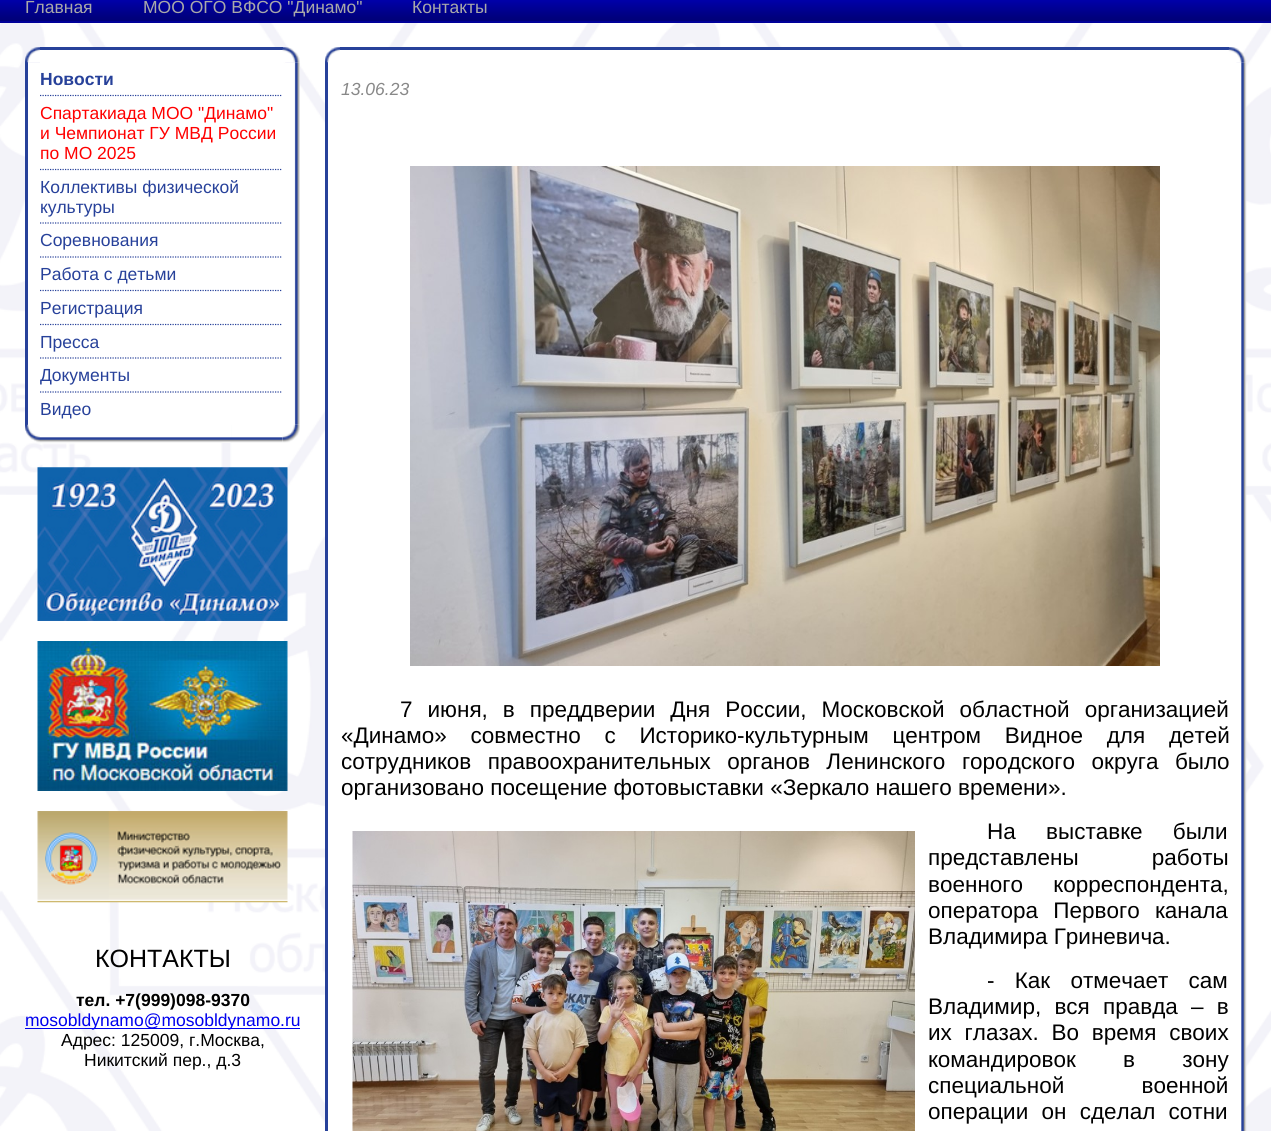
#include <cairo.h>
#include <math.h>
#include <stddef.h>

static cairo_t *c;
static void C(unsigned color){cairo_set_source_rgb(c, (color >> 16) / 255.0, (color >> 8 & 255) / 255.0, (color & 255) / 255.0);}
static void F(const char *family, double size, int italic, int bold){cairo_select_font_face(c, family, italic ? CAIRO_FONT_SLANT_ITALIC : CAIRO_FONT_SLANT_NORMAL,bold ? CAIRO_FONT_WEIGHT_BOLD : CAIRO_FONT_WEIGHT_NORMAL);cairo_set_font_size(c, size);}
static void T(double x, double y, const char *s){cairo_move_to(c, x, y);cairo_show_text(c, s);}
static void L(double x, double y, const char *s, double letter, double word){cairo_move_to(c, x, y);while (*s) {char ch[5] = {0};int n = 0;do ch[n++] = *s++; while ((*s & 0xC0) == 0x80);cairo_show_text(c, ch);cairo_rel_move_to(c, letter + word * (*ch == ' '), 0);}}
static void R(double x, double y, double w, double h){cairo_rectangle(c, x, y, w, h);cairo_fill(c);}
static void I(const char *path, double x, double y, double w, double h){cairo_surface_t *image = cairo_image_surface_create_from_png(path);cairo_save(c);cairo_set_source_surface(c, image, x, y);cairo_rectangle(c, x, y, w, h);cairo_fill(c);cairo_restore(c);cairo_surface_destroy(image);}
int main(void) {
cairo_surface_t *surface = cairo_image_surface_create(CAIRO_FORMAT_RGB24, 1271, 1131);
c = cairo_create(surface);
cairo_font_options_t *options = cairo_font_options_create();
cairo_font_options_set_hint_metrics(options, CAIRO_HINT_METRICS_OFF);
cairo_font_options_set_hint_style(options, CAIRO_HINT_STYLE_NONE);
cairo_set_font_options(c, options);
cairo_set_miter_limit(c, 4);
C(0xffffff);
cairo_paint(c);
I("1.png",0,23,1271,1108);
C(0x000099);
R(0,21,1271,2);
I("2.png",0,0,1271,21);
F("Liberation Sans",17.5,0,0);
C(0xa9a9a9);
T(25,13,"Главная");
T(143,13,"МОО ОГО ВФСО \"Динамо\"");
T(412,13,"Контакты");
C(0x27419a);
R(25,62,3,363);
I("3.png",25,47,15,16);
C(0xffffff);
R(40,50,243,13);
C(0x27419a);
R(40,47,243,3);
C(0xffffff);
R(285,63,15,22);
I("5.png",294,62,6,363);
I("4.png",282,47,18,16);
R(28,63,12,348);
R(40,63,212,362);
cairo_new_path(c);
cairo_move_to(c,40,95.5);
cairo_line_to(c,282.5,95.5);
C(0x27419a);
cairo_set_line_width(c,1.2);
cairo_set_dash(c,(double[]){1.25,1.25},2,0);
cairo_stroke(c);
F("Liberation Sans",17.5,0,1);
T(40,85,"Новости");
cairo_new_path(c);
cairo_move_to(c,40,169.5);
cairo_line_to(c,282.5,169.5);
cairo_stroke(c);
F("Liberation Sans",17.5,0,0);
C(0xff0000);
T(40,119,"Спартакиада МОО \"Динамо\"");
T(40,139,"и Чемпионат ГУ МВД России");
T(40,159,"по МО 2025");
cairo_new_path(c);
cairo_move_to(c,40,223);
cairo_line_to(c,282.5,223);
C(0x27419a);
cairo_stroke(c);
T(40,193,"Коллективы физической");
T(40,213,"культуры");
cairo_new_path(c);
cairo_move_to(c,40,257);
cairo_line_to(c,282.5,257);
cairo_stroke(c);
T(40,246,"Соревнования");
cairo_new_path(c);
cairo_move_to(c,40,290.5);
cairo_line_to(c,282.5,290.5);
cairo_stroke(c);
T(40,280,"Работа с детьми");
cairo_new_path(c);
cairo_move_to(c,40,324.5);
cairo_line_to(c,282.5,324.5);
cairo_stroke(c);
T(40,314,"Регистрация");
cairo_new_path(c);
cairo_move_to(c,40,358);
cairo_line_to(c,282.5,358);
cairo_stroke(c);
T(40,348,"Пресса");
cairo_new_path(c);
cairo_move_to(c,40,392);
cairo_line_to(c,282.5,392);
cairo_stroke(c);
T(40,381,"Документы");
T(40,415,"Видео");
I("6.png",25,424,15,19);
C(0xffffff);
R(221,425,10,18);
I("7.png",40,437,243,6);
I("8.png",282,424,18,19);
I("9.png",37,467,251,154);
I("10.png",37,641,251,150);
I("11.png",37,811,251,92);
F("Liberation Sans",25,0,0);
C(0x000000);
T(95,967,"КОНТАКТЫ");
F("Liberation Sans",17.5,0,1);
T(76,1006,"тел. +7(999)098-9370");
C(0x0000ee);
R(25,1028,275,1);
F("Liberation Sans",17.5,0,0);
T(25,1026,"mosobldynamo@mosobldynamo.ru");
C(0x000000);
T(61,1046,"Адрес: 125009, г.Москва,");
T(84,1066,"Никитский пер., д.3");
C(0x27419a);
R(325,62,3,1069);
I("12.png",325,47,15,16);
C(0xffffff);
R(378,50,697,13);
C(0x27419a);
R(340,47,889,3);
C(0xffffff);
R(340,63,902,1068);
I("16.png",1241,62,6,1069);
I("13.png",1228,47,19,16);
R(328,108,12,1023);
F("Liberation Sans",17.5,1,0);
C(0x888888);
T(341,95,"13.06.23");
I("14.png",410,166,750,500);
F("Liberation Sans",22.5,0,0);
C(0x000000);
L(400,717,"7 июня, в преддверии Дня России, Московской областной организацией",0,8.75);
L(341,743,"«Динамо» совместно с Историко-культурным центром Видное для детей",0,17.5);
L(341,769,"сотрудников правоохранительных органов Ленинского городского округа было",0,10.25);
T(341,795,"организовано посещение фотовыставки «Зеркало нашего времени».");
I("15.png",352,831,563,300);
L(987,839,"На выставке были",0,24);
L(928,865,"представлены работы",0,67);
L(928,892,"военного корреспондента,",0,24);
L(928,918,"оператора Первого канала",0,9);
T(928,944,"Владимира Гриневича.");
L(987,988,"- Как отмечает сам",0,14);
L(928,1014,"Владимир, вся правда – в",0,7);
L(928,1040,"их глазах. Во время своих",0,6.5);
L(928,1067,"командировок в зону",0,41);
L(928,1093,"специальной военной",0,71);
L(928,1119,"операции он сделал сотни",0,7);
cairo_surface_write_to_png(surface, "o.png");
cairo_font_options_destroy(options);
cairo_destroy(c);
cairo_surface_destroy(surface);
return 0;
}
